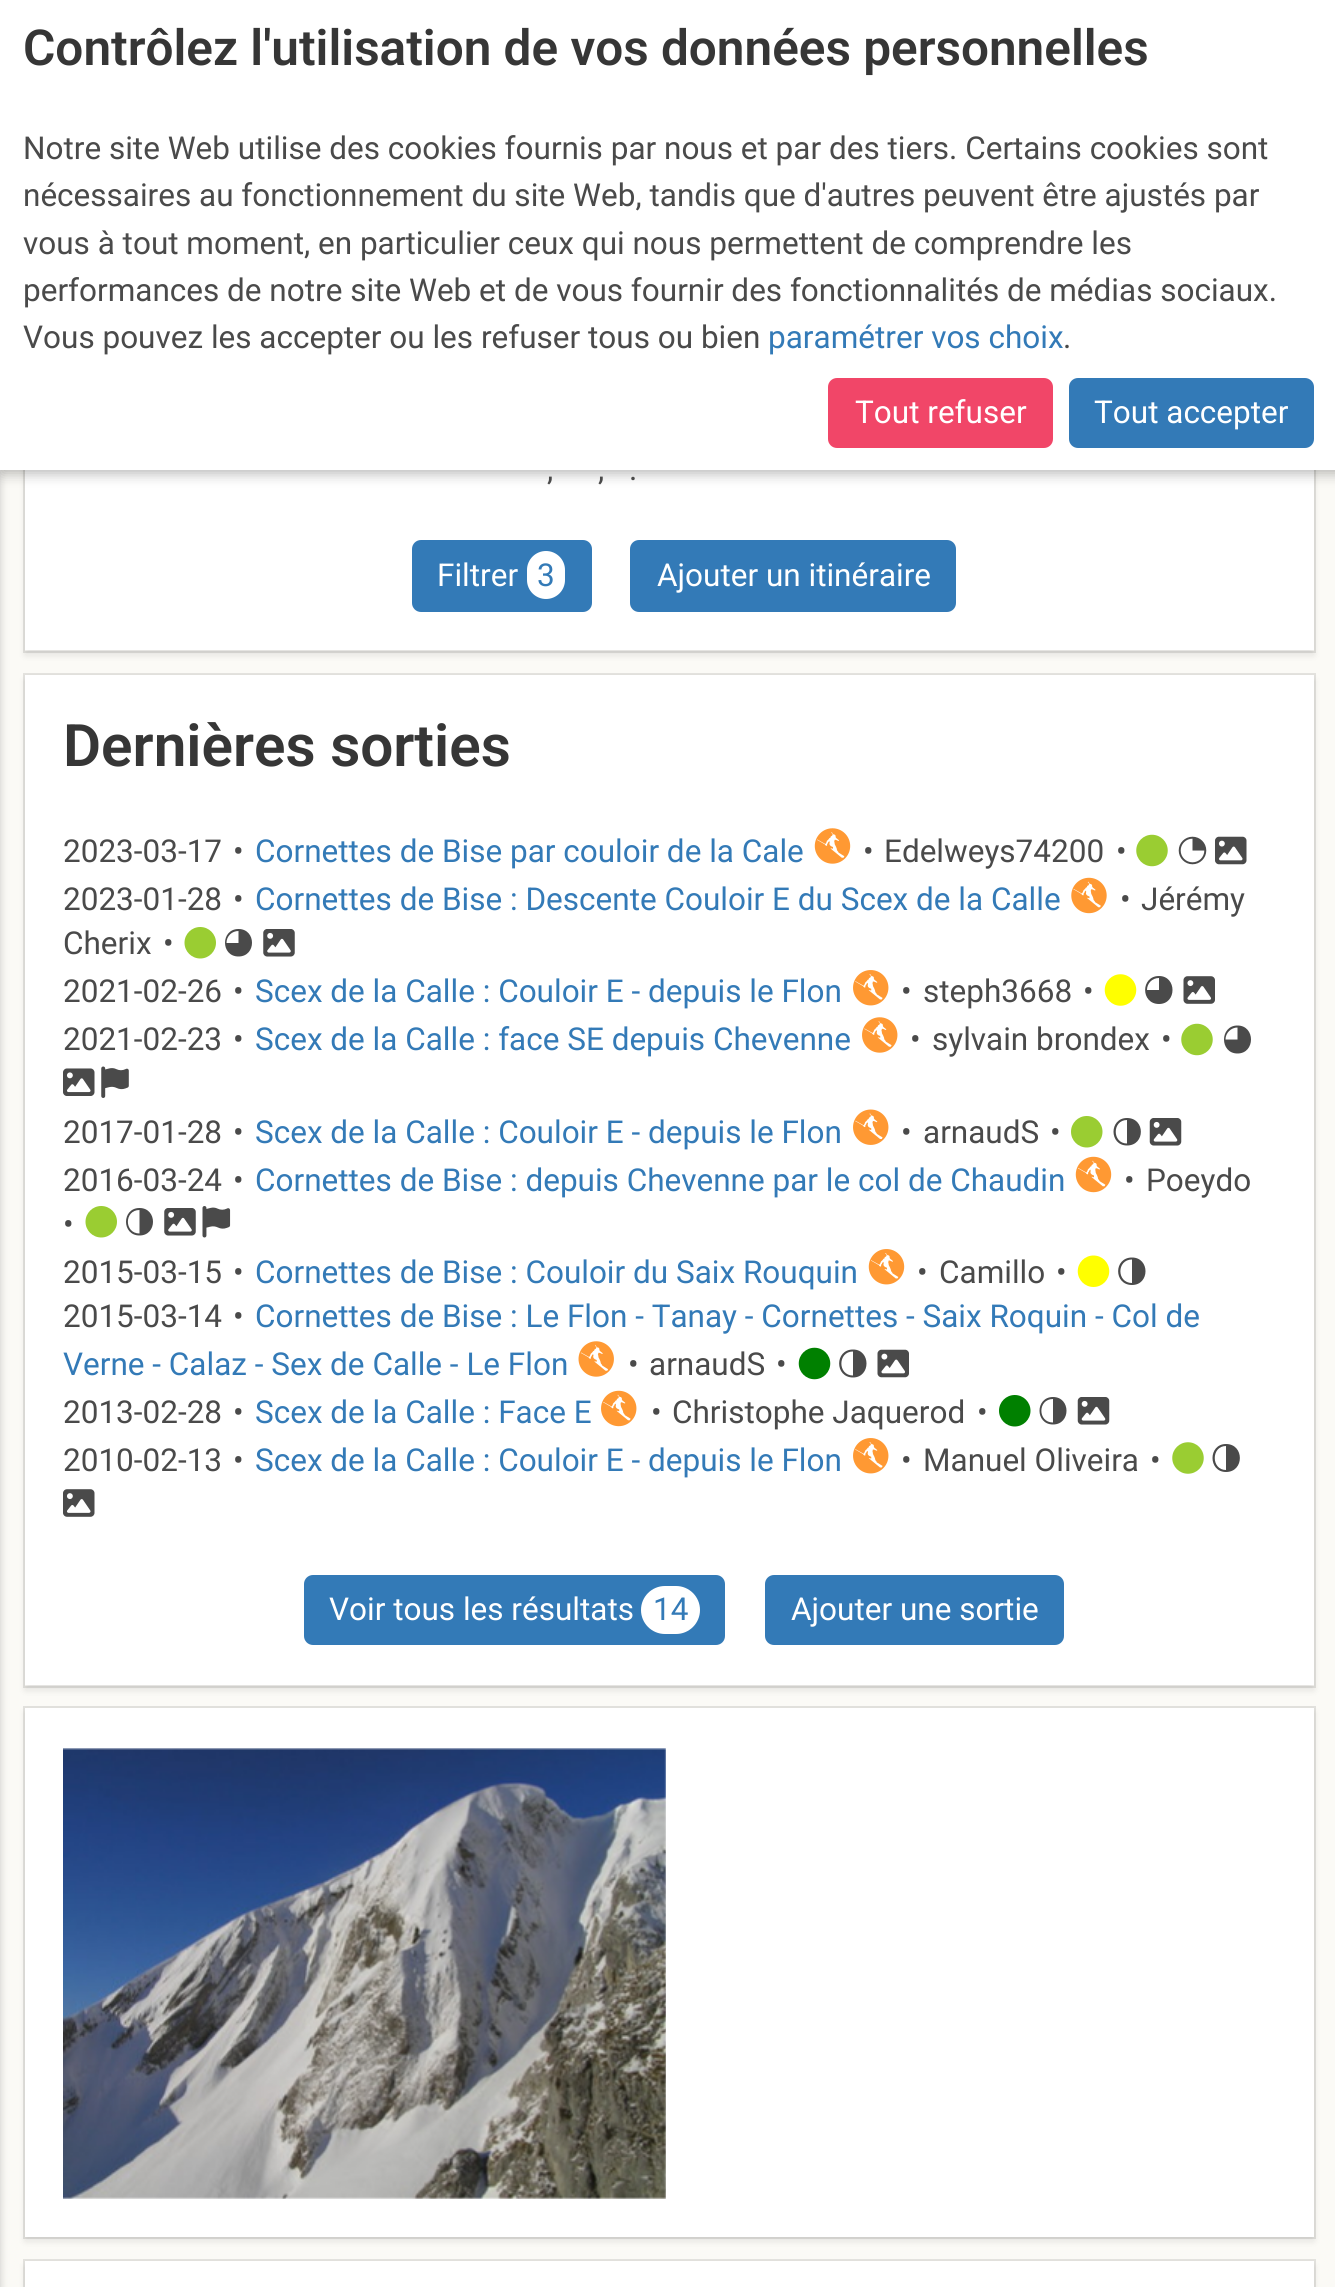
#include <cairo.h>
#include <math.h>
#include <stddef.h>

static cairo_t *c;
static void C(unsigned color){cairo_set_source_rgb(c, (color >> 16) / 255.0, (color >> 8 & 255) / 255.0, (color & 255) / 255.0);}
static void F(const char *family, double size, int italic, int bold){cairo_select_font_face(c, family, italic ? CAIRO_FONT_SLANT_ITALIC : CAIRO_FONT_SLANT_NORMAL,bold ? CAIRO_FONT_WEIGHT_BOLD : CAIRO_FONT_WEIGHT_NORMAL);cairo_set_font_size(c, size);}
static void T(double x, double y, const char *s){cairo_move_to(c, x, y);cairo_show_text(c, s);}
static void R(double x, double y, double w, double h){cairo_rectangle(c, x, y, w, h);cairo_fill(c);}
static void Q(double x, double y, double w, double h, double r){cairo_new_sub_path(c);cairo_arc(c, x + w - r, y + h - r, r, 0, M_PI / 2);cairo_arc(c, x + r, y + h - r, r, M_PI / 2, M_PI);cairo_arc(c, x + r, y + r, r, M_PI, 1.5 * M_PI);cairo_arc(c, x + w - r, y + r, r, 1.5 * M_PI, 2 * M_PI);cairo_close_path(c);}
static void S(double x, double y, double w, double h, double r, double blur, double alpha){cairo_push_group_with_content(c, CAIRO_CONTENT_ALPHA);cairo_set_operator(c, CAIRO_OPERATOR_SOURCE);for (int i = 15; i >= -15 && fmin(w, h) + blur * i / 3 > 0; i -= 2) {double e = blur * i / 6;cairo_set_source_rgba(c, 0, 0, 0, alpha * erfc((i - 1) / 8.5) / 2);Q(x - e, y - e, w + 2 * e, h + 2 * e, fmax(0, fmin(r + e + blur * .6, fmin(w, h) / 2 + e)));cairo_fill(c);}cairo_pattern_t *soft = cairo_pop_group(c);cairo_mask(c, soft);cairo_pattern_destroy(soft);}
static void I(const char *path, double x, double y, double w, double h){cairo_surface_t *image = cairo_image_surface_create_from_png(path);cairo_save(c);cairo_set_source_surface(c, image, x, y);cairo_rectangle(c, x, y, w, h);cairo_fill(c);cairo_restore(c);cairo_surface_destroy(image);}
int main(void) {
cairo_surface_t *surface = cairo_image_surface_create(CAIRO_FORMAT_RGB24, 1335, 2287);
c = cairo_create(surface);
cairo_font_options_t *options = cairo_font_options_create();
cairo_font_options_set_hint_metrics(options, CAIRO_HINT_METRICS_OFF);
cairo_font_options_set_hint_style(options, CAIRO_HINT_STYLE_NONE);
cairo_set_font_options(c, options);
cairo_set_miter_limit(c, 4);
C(0xfbfaf6);
cairo_paint(c);
C(0x000000);
S(-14,2,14,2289,0,4.5,.2);
cairo_rectangle(c,24,125,1291,527);
C(0xe3e2de);
cairo_stroke(c);
C(0x0a0a0a);
S(25,131,1289,524,0,3.5,.1);
C(0xffffff);
R(25,470,1289,180);
C(0x000000);
S(2,2,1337,471,0,7,.3);
C(0xffffff);
R(0,0,1335,470);
F("Roboto SemiBold",49.5,0,0);
C(0x363636);
T(23,65,"Contrôlez l'utilisation de vos données personnelles");
F("Roboto",31.5,0,0);
C(0x4a4a4a);
T(23,159,"Notre site Web utilise des cookies fournis par nous et par des tiers. Certains cookies sont");
T(23,206,"nécessaires au fonctionnement du site Web, tandis que d'autres peuvent être ajustés par");
T(23,254,"vous à tout moment, en particulier ceux qui nous permettent de comprendre les");
T(23,301,"performances de notre site Web et de vous fournir des fonctionnalités de médias sociaux.");
T(23,348,"Vous pouvez les accepter ou les refuser tous ou bien");
C(0x337ab7);
T(768,348,"paramétrer vos choix");
C(0x4a4a4a);
T(1063,348,".");
C(0xf14668);
Q(828,378,225,70,9);
cairo_fill(c);
C(0xffffff);
T(855,423,"Tout refuser");
C(0x337ab7);
Q(1069,378,245,70,9);
cairo_fill(c);
C(0xffffff);
T(1094,423,"Tout accepter");
C(0x4a4a4a);
T(547,480,",");
T(598,480,",");
T(629,480,".");
C(0x337ab7);
Q(412,540,180,72,9);
cairo_fill(c);
C(0xffffff);
T(437,586,"Filtrer");
Q(527,551,38,48,19);
cairo_fill(c);
C(0x337ab7);
T(537,586,"3");
Q(630,540,326,72,9);
cairo_fill(c);
C(0xffffff);
T(657,586,"Ajouter un itinéraire");
cairo_rectangle(c,24,674,1291,1013);
C(0xe3e2de);
cairo_stroke(c);
C(0x0a0a0a);
S(25,680,1289,1010,0,3.5,.1);
C(0xffffff);
R(25,675,1289,1010);
F("Roboto SemiBold",58.5,0,0);
C(0x363636);
T(63,766,"Dernières sorties");
F("Roboto",31.5,0,0);
C(0x4a4a4a);
T(63,862,"2023-03-17");
T(233,862,"•");
C(0x337ab7);
T(255,862,"Cornettes de Bise par couloir de la Cale");
I("1.png",814,828,37,36);
C(0x4a4a4a);
T(863,862,"•");
T(884,862,"Edelweys74200");
T(1116,862,"•");
I("2.png",1136,834,32,33);
I("3.png",1178,836,29,29);
I("4.png",1215,836,32,29);
I("5.png",1071,877,36,37);
T(1120,910,"•");
T(1141,910,"Jérémy");
T(63,954,"Cherix");
T(163,954,"•");
I("6.png",184,927,32,32);
cairo_new_path(c);
cairo_move_to(c,238.5,929);
cairo_curve_to(c,220.5,929,220.5,956.5,238.5,956.5);
cairo_curve_to(c,256.5,956.5,256.5,929,238.5,929);
cairo_close_path(c);
cairo_move_to(c,238.5,931);
cairo_line_to(c,238.5,943);
cairo_line_to(c,226.5,943);
cairo_curve_to(c,226.5,936,232,931,238.5,931);
cairo_close_path(c);
cairo_fill(c);
I("7.png",263,929,32,28);
T(63,910,"2023-01-28");
T(233,910,"•");
C(0x337ab7);
T(255,910,"Cornettes de Bise : Descente Couloir E du Scex de la Calle");
C(0x4a4a4a);
T(63,1002,"2021-02-26");
T(233,1002,"•");
C(0x337ab7);
T(255,1002,"Scex de la Calle : Couloir E - depuis le Flon");
I("8.png",853,970,36,36);
C(0x4a4a4a);
T(901,1002,"•");
T(923,1002,"steph3668");
T(1083,1002,"•");
I("9.png",1104,974,33,32);
cairo_new_path(c);
cairo_move_to(c,1159,976);
cairo_curve_to(c,1140.5,976,1140.5,1004,1159,1004);
cairo_curve_to(c,1177,1004,1177,976,1159,976);
cairo_close_path(c);
cairo_move_to(c,1159,978);
cairo_line_to(c,1159,990);
cairo_line_to(c,1147,990);
cairo_curve_to(c,1147,983.5,1152,978,1159,978);
cairo_close_path(c);
cairo_fill(c);
I("10.png",1183,976,32,28);
T(63,1050,"2021-02-23");
T(233,1050,"•");
C(0x337ab7);
T(255,1050,"Scex de la Calle : face SE depuis Chevenne");
I("11.png",862,1017,36,36);
C(0x4a4a4a);
T(910,1050,"•");
T(932,1050,"sylvain brondex");
T(1161,1050,"•");
I("2.png",1181,1023,32,33);
cairo_new_path(c);
cairo_move_to(c,1237.5,1025.5);
cairo_curve_to(c,1219.5,1025.5,1219.5,1053.5,1237.5,1053.5);
cairo_curve_to(c,1255.5,1053.5,1255.5,1025.5,1237.5,1025.5);
cairo_close_path(c);
cairo_move_to(c,1237.5,1027.5);
cairo_line_to(c,1237.5,1039.5);
cairo_line_to(c,1225.5,1039.5);
cairo_curve_to(c,1225.5,1033,1231,1027.5,1237.5,1027.5);
cairo_close_path(c);
cairo_fill(c);
I("12.png",63,1068,32,28);
I("13.png",101,1066,28,32);
T(63,1143,"2017-01-28");
T(233,1143,"•");
C(0x337ab7);
T(255,1143,"Scex de la Calle : Couloir E - depuis le Flon");
I("14.png",853,1109,36,36);
C(0x4a4a4a);
T(901,1143,"•");
T(923,1143,"arnaudS");
T(1050,1143,"•");
I("15.png",1071,1116,32,32);
cairo_new_path(c);
cairo_move_to(c,1127,1118);
cairo_curve_to(c,1109,1118,1109,1145.5,1127,1145.5);
cairo_curve_to(c,1145.5,1145.5,1145.5,1118,1127,1118);
cairo_close_path(c);
cairo_move_to(c,1127,1120);
cairo_line_to(c,1127,1143.5);
cairo_curve_to(c,1112,1143.5,1112,1120,1127,1120);
cairo_close_path(c);
cairo_fill(c);
I("16.png",1149,1118,33,28);
I("17.png",1075,1156,37,37);
T(1124,1191,"•");
T(1146,1191,"Poeydo");
T(63,1235,"•");
I("6.png",85,1206,32,32);
cairo_new_path(c);
cairo_move_to(c,139.5,1208);
cairo_curve_to(c,121.5,1208,121.5,1235.5,139.5,1235.5);
cairo_curve_to(c,157.5,1235.5,157.5,1208,139.5,1208);
cairo_close_path(c);
cairo_move_to(c,139.5,1210);
cairo_line_to(c,139.5,1233.5);
cairo_curve_to(c,124,1233.5,124,1210,139.5,1210);
cairo_close_path(c);
cairo_fill(c);
I("7.png",164,1208,32,28);
I("18.png",202,1206,29,32);
T(63,1191,"2016-03-24");
T(233,1191,"•");
C(0x337ab7);
T(255,1191,"Cornettes de Bise : depuis Chevenne par le col de Chaudin");
C(0x4a4a4a);
T(63,1283,"2015-03-15");
T(233,1283,"•");
C(0x337ab7);
T(255,1283,"Cornettes de Bise : Couloir du Saix Rouquin");
I("19.png",868,1249,37,36);
C(0x4a4a4a);
T(917,1283,"•");
T(939,1283,"Camillo");
T(1056,1283,"•");
I("20.png",1077,1255,33,32);
cairo_new_path(c);
cairo_move_to(c,1132,1257.5);
cairo_curve_to(c,1113.5,1257.5,1113.5,1285,1132,1285);
cairo_curve_to(c,1150,1285,1150,1257.5,1132,1257.5);
cairo_close_path(c);
cairo_move_to(c,1132,1259.5);
cairo_line_to(c,1132,1283);
cairo_curve_to(c,1116.5,1283,1116.5,1259.5,1132,1259.5);
cairo_close_path(c);
cairo_fill(c);
T(63,1327,"2015-03-14");
T(233,1327,"•");
C(0x337ab7);
T(255,1327,"Cornettes de Bise : Le Flon - Tanay - Cornettes - Saix Roquin - Col de");
T(63,1375,"Verne - Calaz - Sex de Calle - Le Flon");
I("21.png",578,1341,36,36);
C(0x4a4a4a);
T(628,1375,"•");
T(649,1375,"arnaudS");
T(776,1375,"•");
I("22.png",798,1347,33,33);
cairo_new_path(c);
cairo_move_to(c,853,1349.5);
cairo_curve_to(c,834.5,1349.5,834.5,1377.5,853,1377.5);
cairo_curve_to(c,871,1377.5,871,1349.5,853,1349.5);
cairo_close_path(c);
cairo_move_to(c,853,1351.5);
cairo_line_to(c,853,1375.5);
cairo_curve_to(c,837.5,1375.5,837.5,1351.5,853,1351.5);
cairo_close_path(c);
cairo_fill(c);
I("23.png",877,1349,32,29);
T(63,1423,"2013-02-28");
T(233,1423,"•");
C(0x337ab7);
T(255,1423,"Scex de la Calle : Face E");
I("24.png",601,1390,36,37);
C(0x4a4a4a);
T(651,1423,"•");
T(672,1423,"Christophe Jaquerod");
T(977,1423,"•");
I("25.png",999,1395,32,32);
cairo_new_path(c);
cairo_move_to(c,1053,1397);
cairo_curve_to(c,1035,1397,1035,1424.5,1053,1424.5);
cairo_curve_to(c,1071,1424.5,1071,1397,1053,1397);
cairo_close_path(c);
cairo_move_to(c,1053,1399);
cairo_line_to(c,1053,1422.5);
cairo_curve_to(c,1037.5,1422.5,1037.5,1399,1053,1399);
cairo_close_path(c);
cairo_fill(c);
I("16.png",1077,1397,33,28);
T(63,1471,"2010-02-13");
T(233,1471,"•");
C(0x337ab7);
T(255,1471,"Scex de la Calle : Couloir E - depuis le Flon");
I("8.png",853,1438,36,36);
C(0x4a4a4a);
T(901,1471,"•");
T(923,1471,"Manuel Oliveira");
T(1150,1471,"•");
I("26.png",1172,1442,32,32);
cairo_new_path(c);
cairo_move_to(c,1226,1444);
cairo_curve_to(c,1208,1444,1208,1472,1226,1472);
cairo_curve_to(c,1244.5,1472,1244.5,1444,1226,1444);
cairo_close_path(c);
cairo_move_to(c,1226,1446);
cairo_line_to(c,1226,1470);
cairo_curve_to(c,1211,1470,1211,1446,1226,1446);
cairo_close_path(c);
cairo_fill(c);
I("27.png",63,1489,32,28);
C(0x337ab7);
Q(304,1575,421,70,9);
cairo_fill(c);
C(0xffffff);
T(329,1620,"Voir tous les résultats");
Q(641,1586,59,48,24);
cairo_fill(c);
C(0x337ab7);
T(653,1620,"14");
Q(765,1575,299,70,9);
cairo_fill(c);
C(0xffffff);
T(791,1620,"Ajouter une sortie");
cairo_rectangle(c,24,1707,1291,531);
C(0xe3e2de);
cairo_stroke(c);
C(0x0a0a0a);
S(25,1712,1289,529,0,3.5,.1);
C(0xffffff);
R(25,1708,1289,529);
I("28.png",63,1748,603,451);
cairo_rectangle(c,24,2260,1291,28);
C(0xe3e2de);
cairo_stroke(c);
C(0x0a0a0a);
S(25,2266,1289,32,0,3.5,.1);
C(0xffffff);
R(25,2261,1289,26);
cairo_surface_write_to_png(surface, "o.png");
cairo_font_options_destroy(options);
cairo_destroy(c);
cairo_surface_destroy(surface);
return 0;
}
